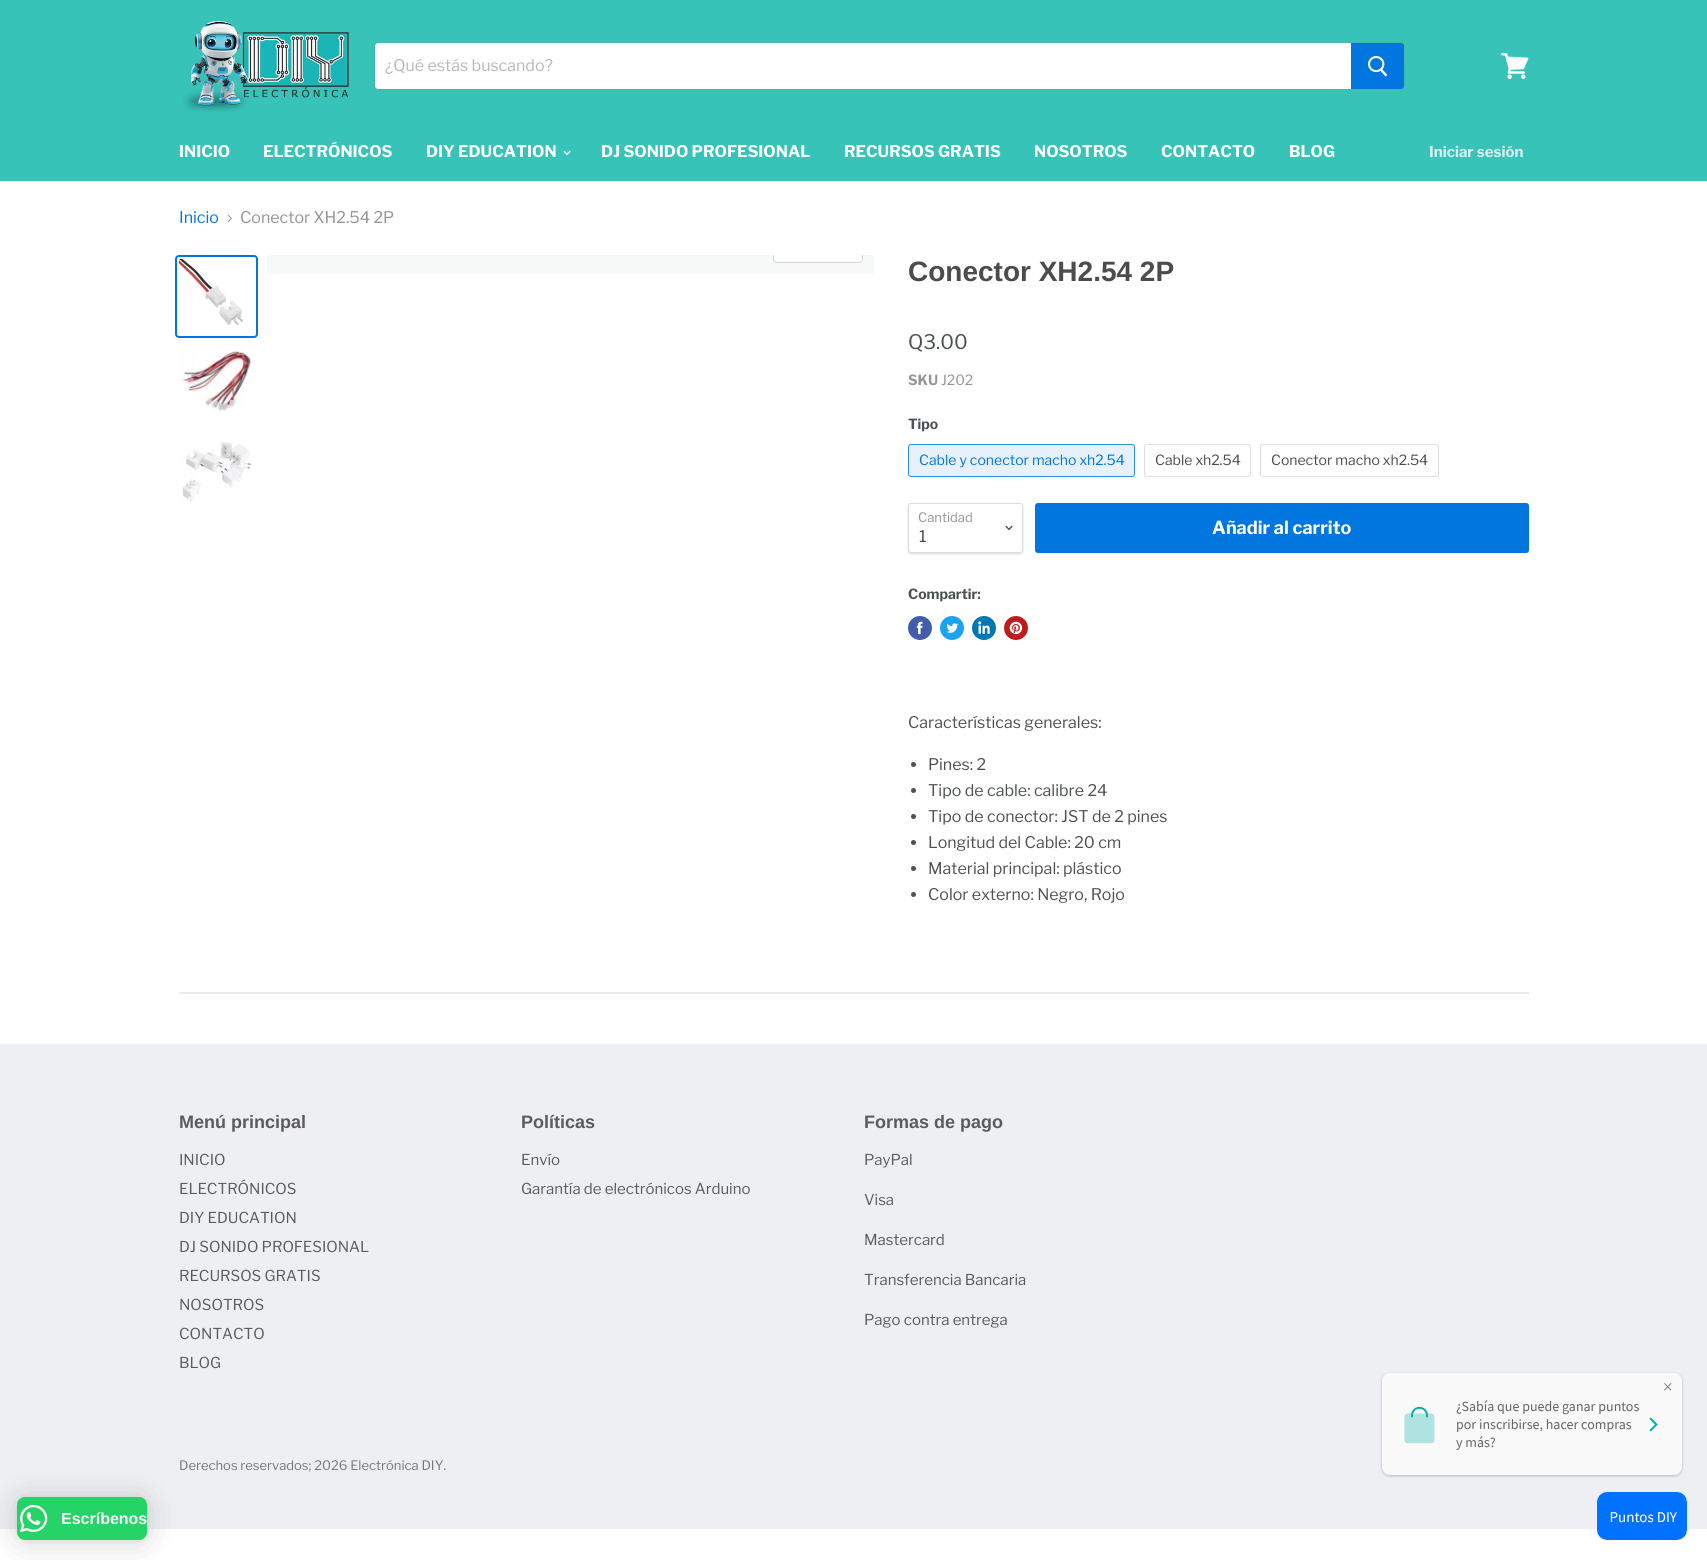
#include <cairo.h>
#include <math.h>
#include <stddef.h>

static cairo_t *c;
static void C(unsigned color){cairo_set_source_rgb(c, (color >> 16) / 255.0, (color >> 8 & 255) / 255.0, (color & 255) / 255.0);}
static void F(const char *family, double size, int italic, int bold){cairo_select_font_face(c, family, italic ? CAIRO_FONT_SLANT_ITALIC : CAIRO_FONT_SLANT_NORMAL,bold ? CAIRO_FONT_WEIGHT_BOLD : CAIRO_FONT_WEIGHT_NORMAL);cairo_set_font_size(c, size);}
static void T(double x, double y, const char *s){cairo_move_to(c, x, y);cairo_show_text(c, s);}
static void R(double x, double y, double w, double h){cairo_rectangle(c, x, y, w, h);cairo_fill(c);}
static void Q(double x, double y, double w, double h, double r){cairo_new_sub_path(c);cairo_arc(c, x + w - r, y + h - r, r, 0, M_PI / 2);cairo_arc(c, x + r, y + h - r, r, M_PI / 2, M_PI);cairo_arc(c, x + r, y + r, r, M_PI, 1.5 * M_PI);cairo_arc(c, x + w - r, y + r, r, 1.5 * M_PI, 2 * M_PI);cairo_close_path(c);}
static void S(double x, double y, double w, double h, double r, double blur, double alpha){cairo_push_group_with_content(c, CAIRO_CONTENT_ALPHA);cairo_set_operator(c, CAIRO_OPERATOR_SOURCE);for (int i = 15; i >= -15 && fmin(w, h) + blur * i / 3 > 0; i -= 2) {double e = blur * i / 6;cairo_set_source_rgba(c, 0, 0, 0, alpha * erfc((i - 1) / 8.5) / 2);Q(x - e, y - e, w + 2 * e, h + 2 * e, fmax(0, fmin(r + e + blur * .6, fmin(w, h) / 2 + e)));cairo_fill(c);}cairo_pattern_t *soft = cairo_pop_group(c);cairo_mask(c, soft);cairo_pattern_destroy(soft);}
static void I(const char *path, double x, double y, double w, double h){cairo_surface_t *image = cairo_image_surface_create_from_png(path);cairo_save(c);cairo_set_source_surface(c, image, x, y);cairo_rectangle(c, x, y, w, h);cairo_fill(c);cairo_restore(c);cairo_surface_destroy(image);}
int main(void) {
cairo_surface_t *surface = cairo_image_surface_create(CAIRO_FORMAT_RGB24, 1707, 1560);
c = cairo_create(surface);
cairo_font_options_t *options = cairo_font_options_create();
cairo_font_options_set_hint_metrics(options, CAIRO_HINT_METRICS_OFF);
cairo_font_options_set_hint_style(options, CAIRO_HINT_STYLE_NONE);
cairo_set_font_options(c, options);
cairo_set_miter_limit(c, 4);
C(0xffffff);
cairo_paint(c);
C(0x37c3b8);
R(0,0,1707,181);
I("1.png",182,20,167,92);
Q(374.5,42.5,1030,47,3.5);
C(0x45b5ad);
cairo_set_line_width(c,1);
cairo_stroke(c);
C(0xffffff);
cairo_new_path(c);
cairo_move_to(c,378,43);
cairo_line_to(c,1351,43);
cairo_line_to(c,1351,89);
cairo_line_to(c,378,89);
cairo_curve_to(c,376.5,89,375,87.5,375,86);
cairo_line_to(c,375,46);
cairo_curve_to(c,375,44.5,376.5,43,378,43);
cairo_close_path(c);
cairo_fill(c);
F("Libre Franklin",16,0,0);
C(0xb8b8b8);
T(385,71,"¿Qué estás buscando?");
C(0x0076de);
cairo_new_path(c);
cairo_move_to(c,1351.5,43.5);
cairo_line_to(c,1401,43.5);
cairo_curve_to(c,1402.5,43.5,1403.5,44.5,1403.5,46);
cairo_line_to(c,1403.5,86);
cairo_curve_to(c,1403.5,87.5,1402.5,88.5,1401,88.5);
cairo_line_to(c,1351.5,88.5);
cairo_close_path(c);
cairo_fill_preserve(c);
cairo_stroke(c);
I("2.png",1368,56,20,21);
I("3.png",1501,53,28,26);
F("Libre Franklin",16,0,1);
C(0xffffff);
T(179,157,"INICIO");
T(263,157,"ELECTRÓNICOS");
T(426,157,"DIY EDUCATION");
I("4.png",563,150,8,6);
T(601,157,"DJ SONIDO PROFESIONAL");
T(844,157,"RECURSOS GRATIS");
T(1034,157,"NOSOTROS");
T(1161,157,"CONTACTO");
T(1289,157,"BLOG");
F("Libre Franklin",15,0,1);
C(0xd7f3f1);
T(1429,157,"Iniciar sesión");
F("Libre Franklin",16,0,0);
C(0x0076de);
T(179,223,"Inicio");
I("5.png",227,214,5,8);
C(0x949494);
T(240,223,"Conector XH2.54 2P");
Q(176,256,81,81,3);
C(0x0076de);
cairo_set_line_width(c,2);
cairo_stroke(c);
I("6.png",179,259,64,67);
I("7.png",179,350,75,62);
I("8.png",182,440,69,62);
C(0xf7f8f8);
R(267,255,607,19);
cairo_save(c);
cairo_rectangle(c,267,255,607,19);
cairo_clip(c);
Q(773.5,233.5,89,29,3.5);
C(0xd2d3d3);
cairo_set_line_width(c,1);
cairo_stroke(c);
cairo_restore(c);
cairo_set_source_rgba(c,1,1,1,0.9);
cairo_new_path(c);
cairo_move_to(c,774,255);
cairo_line_to(c,862,255);
cairo_line_to(c,862,259);
cairo_curve_to(c,862,260.5,860.5,262,859,262);
cairo_line_to(c,777,262);
cairo_curve_to(c,775.5,262,774,260.5,774,259);
cairo_close_path(c);
cairo_fill(c);
F("Arimo",28,0,1);
C(0x4c4c4c);
T(908,281,"Conector XH2.54 2P");
F("Libre Franklin",20,0,0);
C(0x4c5154);
T(908,349,"Q3.00");
F("Libre Franklin",14,0,1);
C(0x949494);
T(908,385,"SKU");
F("Libre Franklin",14,0,0);
T(941,385,"J202");
F("Libre Franklin",14,0,1);
C(0x4c5154);
T(908,429,"Tipo");
C(0xe6f1fc);
Q(908,444,227,33,3);
cairo_fill(c);
Q(908.5,444.5,226,32,2.5);
cairo_set_source_rgba(c,0,0.463,0.871,0.8);
cairo_set_line_width(c,1);
cairo_stroke(c);
F("Libre Franklin",14,0,0);
C(0x0076de);
T(919,465,"Cable y conector macho xh2.54");
Q(1144.5,444.5,106,32,2.5);
C(0xdddddd);
cairo_stroke(c);
C(0x4c4c4c);
T(1155,465,"Cable xh2.54");
Q(1260.5,444.5,178,32,2.5);
C(0xdddddd);
cairo_stroke(c);
C(0x4c4c4c);
T(1271,465,"Conector macho xh2.54");
C(0x000000);
S(908,504,115,50,3,1,.15);
C(0xffffff);
Q(908.5,503.5,114,49,2.5);
cairo_fill_preserve(c);
C(0xdddddd);
cairo_stroke(c);
F("Libre Franklin",13,0,0);
C(0x949494);
T(918,522,"Cantidad");
I("9.png",1005,525,8,6);
F("Libre Franklin",16,0,0);
C(0x4c4c4c);
T(919,542,"1");
C(0x0076de);
Q(1035.5,503.5,493,49,2.5);
cairo_fill_preserve(c);
cairo_stroke(c);
F("Libre Franklin",18,0,1);
C(0xffffff);
T(1212,534,"Añadir al carrito");
F("Libre Franklin",14,0,1);
C(0x4c5154);
T(908,599,"Compartir:");
C(0x425dab);
cairo_new_path(c);
cairo_arc(c,920,628,12,0,2 * M_PI);
cairo_fill(c);
I("10.png",916,621,7,14);
C(0x1da1f2);
cairo_arc(c,952,628,12,0,2 * M_PI);
cairo_fill(c);
I("11.png",946,623,13,10);
C(0x0077b5);
cairo_arc(c,984,628,12,0,2 * M_PI);
cairo_fill(c);
I("12.png",978,621,12,13);
C(0xbd1c1c);
cairo_arc(c,1016,628,12,0,2 * M_PI);
cairo_fill(c);
I("13.png",1009,621,14,14);
F("Libre Franklin",16,0,0);
C(0x4c5154);
T(908,728,"Características generales:");
cairo_new_path(c);
cairo_arc(c,913.5,764.5,2.5,0,2 * M_PI);
cairo_fill(c);
T(928,770,"Pines: 2");
cairo_new_path(c);
cairo_arc(c,913.5,790.5,2.5,0,2 * M_PI);
cairo_fill(c);
T(928,796,"Tipo de cable: calibre 24");
cairo_new_path(c);
cairo_arc(c,913.5,816.5,2.5,0,2 * M_PI);
cairo_fill(c);
T(928,822,"Tipo de conector: JST de 2 pines");
cairo_new_path(c);
cairo_arc(c,913.5,842.5,2.5,0,2 * M_PI);
cairo_fill(c);
T(928,848,"Longitud del Cable: 20 cm");
cairo_new_path(c);
cairo_arc(c,913.5,868.5,2.5,0,2 * M_PI);
cairo_fill(c);
T(928,874,"Material principal: plástico");
cairo_new_path(c);
cairo_arc(c,913.5,894.5,2.5,0,2 * M_PI);
cairo_fill(c);
T(928,900,"Color externo: Negro, Rojo");
C(0xebebeb);
R(179,992,1350,2);
C(0xedeff3);
R(0,1044,1707,485);
F("Arimo",18,0,1);
C(0x5c5c5c);
T(179,1128,"Menú principal");
F("Libre Franklin",15,0,0);
T(179,1165,"INICIO");
T(179,1194,"ELECTRÓNICOS");
T(179,1223,"DIY EDUCATION");
T(179,1252,"DJ SONIDO PROFESIONAL");
T(179,1281,"RECURSOS GRATIS");
T(179,1310,"NOSOTROS");
T(179,1339,"CONTACTO");
T(179,1368,"BLOG");
F("Arimo",18,0,1);
T(521,1128,"Políticas");
F("Libre Franklin",15,0,0);
T(521,1165,"Envío");
T(521,1194,"Garantía de electrónicos Arduino");
F("Arimo",18,0,1);
T(864,1128,"Formas de pago");
F("Libre Franklin",15,0,0);
T(864,1165,"PayPal");
T(864,1205,"Visa");
T(864,1245,"Mastercard");
T(864,1285,"Transferencia Bancaria");
T(864,1325,"Pago contra entrega");
F("Libre Franklin",13,0,0);
C(0x79797a);
T(179,1470,"Derechos reservados; 2026 Electrónica DIY.");
I("14.png",1380,1372,304,106);
C(0x000000);
S(17,1499,130,43,8,16,.16);
S(17,1498,130,43,8,3,.06);
I("15.png",1597,1492,90,48);
C(0x25d366);
Q(17,1497,130,43,8);
cairo_fill(c);
I("16.png",20,1504,28,29);
F("Liberation Sans",16,0,1);
C(0xffffff);
T(61,1524,"Escríbenos");
cairo_surface_write_to_png(surface, "o.png");
cairo_font_options_destroy(options);
cairo_destroy(c);
cairo_surface_destroy(surface);
return 0;
}
